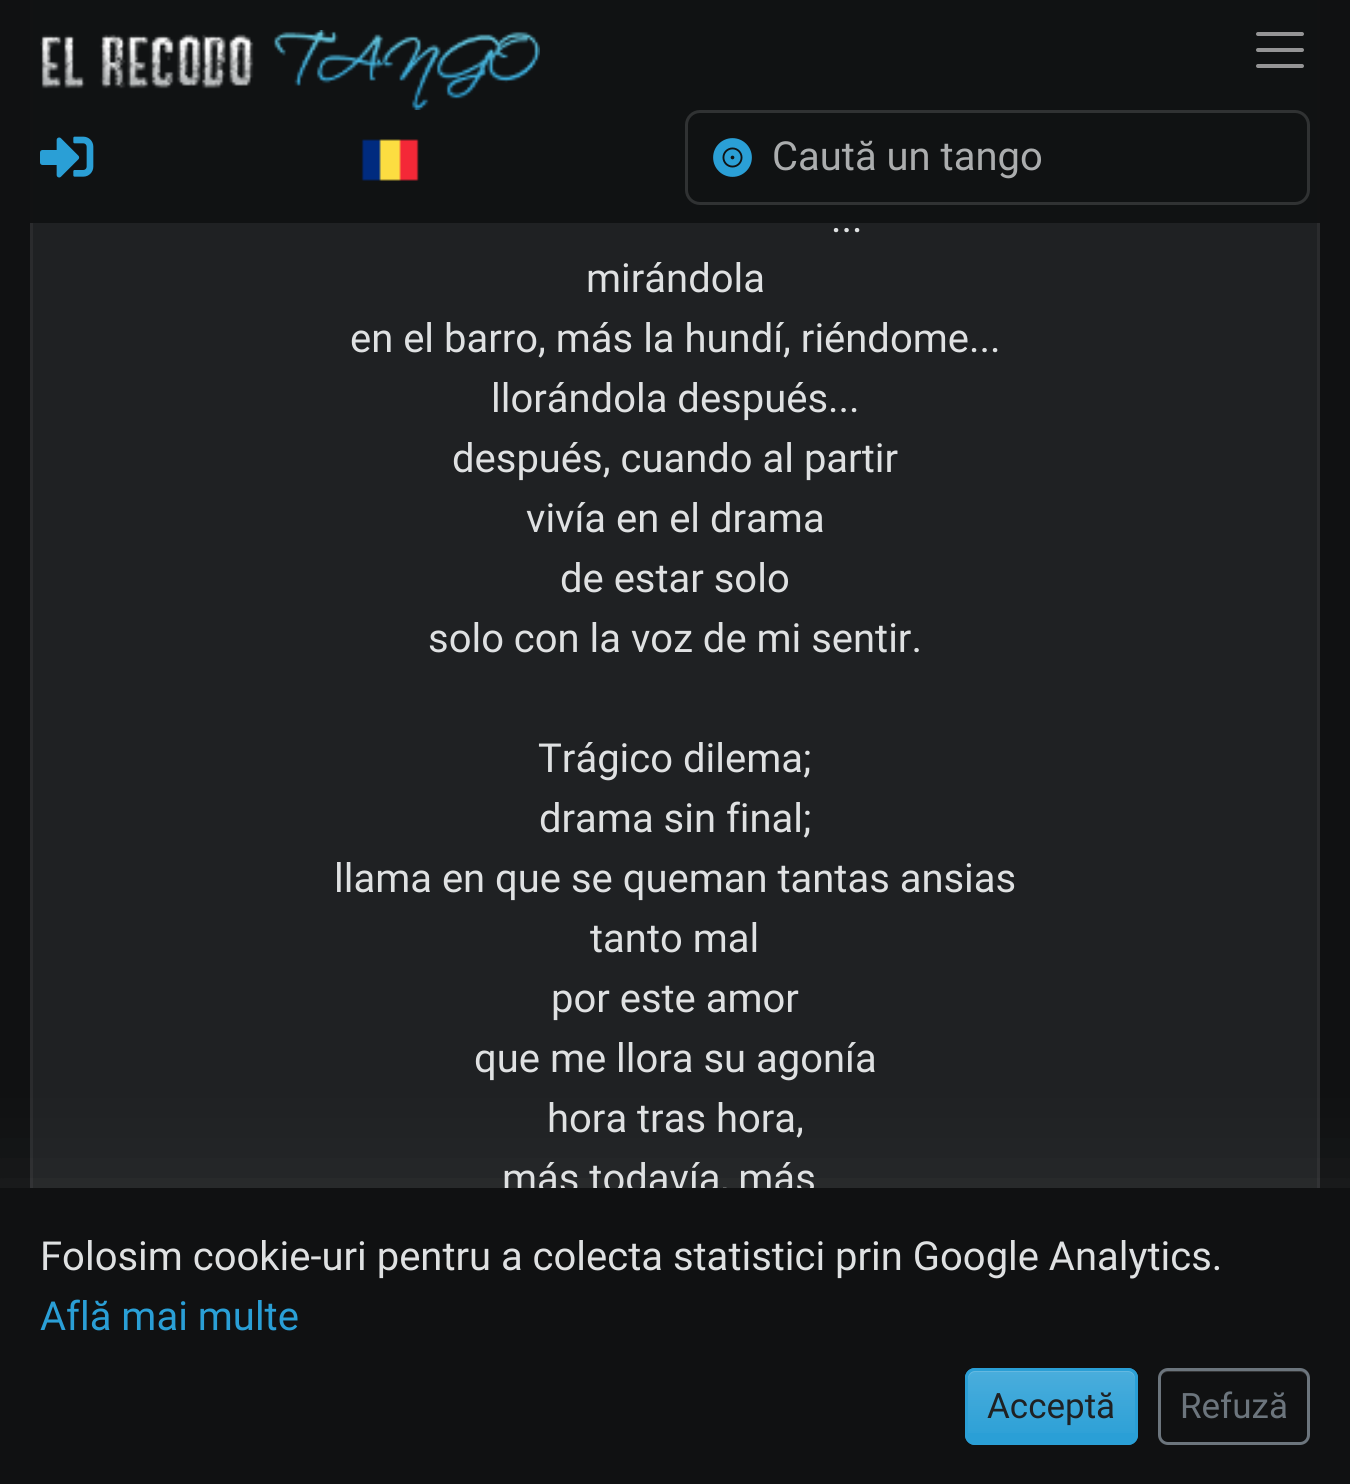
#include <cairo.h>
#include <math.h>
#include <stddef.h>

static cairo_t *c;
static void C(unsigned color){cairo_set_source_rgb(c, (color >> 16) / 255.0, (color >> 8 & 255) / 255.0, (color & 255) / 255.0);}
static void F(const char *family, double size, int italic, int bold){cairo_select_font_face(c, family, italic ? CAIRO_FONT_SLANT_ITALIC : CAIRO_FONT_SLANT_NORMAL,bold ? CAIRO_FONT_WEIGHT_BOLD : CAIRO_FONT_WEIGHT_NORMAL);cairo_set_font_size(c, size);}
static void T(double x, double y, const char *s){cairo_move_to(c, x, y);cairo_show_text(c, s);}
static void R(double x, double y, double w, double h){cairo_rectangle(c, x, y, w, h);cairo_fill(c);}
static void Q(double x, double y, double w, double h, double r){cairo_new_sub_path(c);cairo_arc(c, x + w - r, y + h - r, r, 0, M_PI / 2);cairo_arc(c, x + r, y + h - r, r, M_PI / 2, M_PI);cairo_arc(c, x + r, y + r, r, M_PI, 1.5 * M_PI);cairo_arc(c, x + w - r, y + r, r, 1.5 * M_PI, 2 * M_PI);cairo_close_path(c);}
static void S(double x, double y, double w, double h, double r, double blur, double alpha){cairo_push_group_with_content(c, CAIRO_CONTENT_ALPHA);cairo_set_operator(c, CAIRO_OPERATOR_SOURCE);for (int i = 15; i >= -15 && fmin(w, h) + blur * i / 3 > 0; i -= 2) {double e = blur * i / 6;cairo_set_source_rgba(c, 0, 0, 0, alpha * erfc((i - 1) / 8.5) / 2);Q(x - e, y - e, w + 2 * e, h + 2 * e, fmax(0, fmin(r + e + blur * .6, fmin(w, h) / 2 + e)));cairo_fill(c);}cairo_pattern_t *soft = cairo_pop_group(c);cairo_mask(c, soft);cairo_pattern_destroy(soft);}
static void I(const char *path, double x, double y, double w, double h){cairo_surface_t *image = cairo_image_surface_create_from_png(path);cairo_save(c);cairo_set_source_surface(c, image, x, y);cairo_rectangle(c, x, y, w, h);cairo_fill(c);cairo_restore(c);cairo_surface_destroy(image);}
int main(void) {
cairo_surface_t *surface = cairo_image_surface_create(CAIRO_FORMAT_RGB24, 1350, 1484);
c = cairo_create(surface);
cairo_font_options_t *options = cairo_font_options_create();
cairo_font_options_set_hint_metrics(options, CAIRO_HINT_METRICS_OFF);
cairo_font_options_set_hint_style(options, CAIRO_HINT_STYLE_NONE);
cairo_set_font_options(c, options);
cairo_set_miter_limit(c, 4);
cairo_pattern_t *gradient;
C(0x101112);
cairo_paint(c);
C(0x1f2123);
R(30,0,1290,1188);
cairo_rectangle(c,31.5,-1.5,1287,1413);
cairo_set_source_rgba(c,1,1,1,0.05);
cairo_set_line_width(c,3);
cairo_stroke(c);
cairo_set_source_rgba(c,0.063,0.067,0.071,0.95);
R(30,0,1290,223);
I("1.png",40,30,500,80);
cairo_new_path(c);
cairo_move_to(c,1258,34);
cairo_line_to(c,1302,34);
cairo_move_to(c,1258,50);
cairo_line_to(c,1302,50);
cairo_move_to(c,1258,66);
cairo_line_to(c,1302,66);
C(0x949495);
cairo_set_line_width(c,4);
cairo_set_line_cap(c,CAIRO_LINE_CAP_ROUND);
cairo_stroke(c);
I("2.png",40,136,54,42);
I("3.png",361,139,58,42);
Q(686.5,111.5,622,92,13.5);
C(0x303233);
cairo_set_line_width(c,3);
cairo_set_line_cap(c,CAIRO_LINE_CAP_BUTT);
cairo_stroke(c);
I("4.png",713,138,39,39);
F("Roboto",40,0,0);
C(0xabadae);
T(772,170,"Caută un tango");
C(0xdfe1e2);
T(831,232,"...");
T(586,292,"mirándola");
T(350,352,"en el barro, más la hundí, riéndome...");
T(491,412,"llorándola después...");
T(452,472,"después, cuando al partir");
T(526,532,"vivía en el drama");
T(560,592,"de estar solo");
T(428,652,"solo con la voz de mi sentir.");
T(538,772,"Trágico dilema;");
T(539,832,"drama sin final;");
T(334,892,"llama en que se queman tantas ansias");
T(590,952,"tanto mal");
T(551,1012,"por este amor");
T(474,1072,"que me llora su agonía");
T(547,1132,"hora tras hora,");
T(502,1192,"más todavía, más");
C(0xdfe1e2);
S(-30,1228,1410,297,0,60,.18);
C(0x101112);
R(0,1188,1350,296);
C(0xdfe1e2);
T(40,1270,"Folosim cookie-uri pentru a colecta statistici prin Google Analytics.");
C(0x2a9fd6);
T(40,1330,"Află mai multe");
Q(965,1368,173,77,10);
cairo_fill(c);
cairo_save(c);
Q(965,1368,173,77,10);
cairo_clip(c);
gradient = cairo_pattern_create_linear(1051,1370,1051,1443);
cairo_pattern_add_color_stop_rgba(gradient,0,1,1,1,.15);
cairo_pattern_add_color_stop_rgba(gradient,1,1,1,1,0);
cairo_set_source(c,gradient);
cairo_pattern_destroy(gradient);
R(965,1370,173,63);
cairo_restore(c);
cairo_set_source_rgba(c,1,1,1,0.15);
cairo_new_path(c);
cairo_move_to(c,975,1372);
cairo_line_to(c,1128,1372);
cairo_curve_to(c,1132,1372,1135,1376,1135,1380);
cairo_line_to(c,1135,1378);
cairo_curve_to(c,1135,1374,1131,1370,1127,1370);
cairo_line_to(c,976,1370);
cairo_curve_to(c,972,1370,968,1374,968,1378);
cairo_line_to(c,968,1380);
cairo_curve_to(c,968,1376,971,1372,975,1372);
cairo_close_path(c);
cairo_fill(c);
Q(966.5,1369.5,170,74,8.5);
C(0x2a9fd6);
cairo_stroke(c);
F("Roboto",35,0,0);
C(0x1f2123);
T(987,1418,"Acceptă");
C(0x343536);
cairo_new_path(c);
cairo_move_to(c,1168,1372);
cairo_line_to(c,1300,1372);
cairo_curve_to(c,1304,1372,1308,1376,1308,1380);
cairo_line_to(c,1308,1378);
cairo_curve_to(c,1308,1374,1304,1370,1300,1370);
cairo_line_to(c,1168,1370);
cairo_curve_to(c,1164,1370,1160,1374,1160,1378);
cairo_line_to(c,1160,1380);
cairo_curve_to(c,1160,1376,1163,1372,1168,1372);
cairo_close_path(c);
cairo_fill(c);
Q(1159.5,1369.5,149,74,8.5);
C(0x6c757d);
cairo_stroke(c);
T(1180,1418,"Refuză");
cairo_surface_write_to_png(surface, "o.png");
cairo_font_options_destroy(options);
cairo_destroy(c);
cairo_surface_destroy(surface);
return 0;
}
